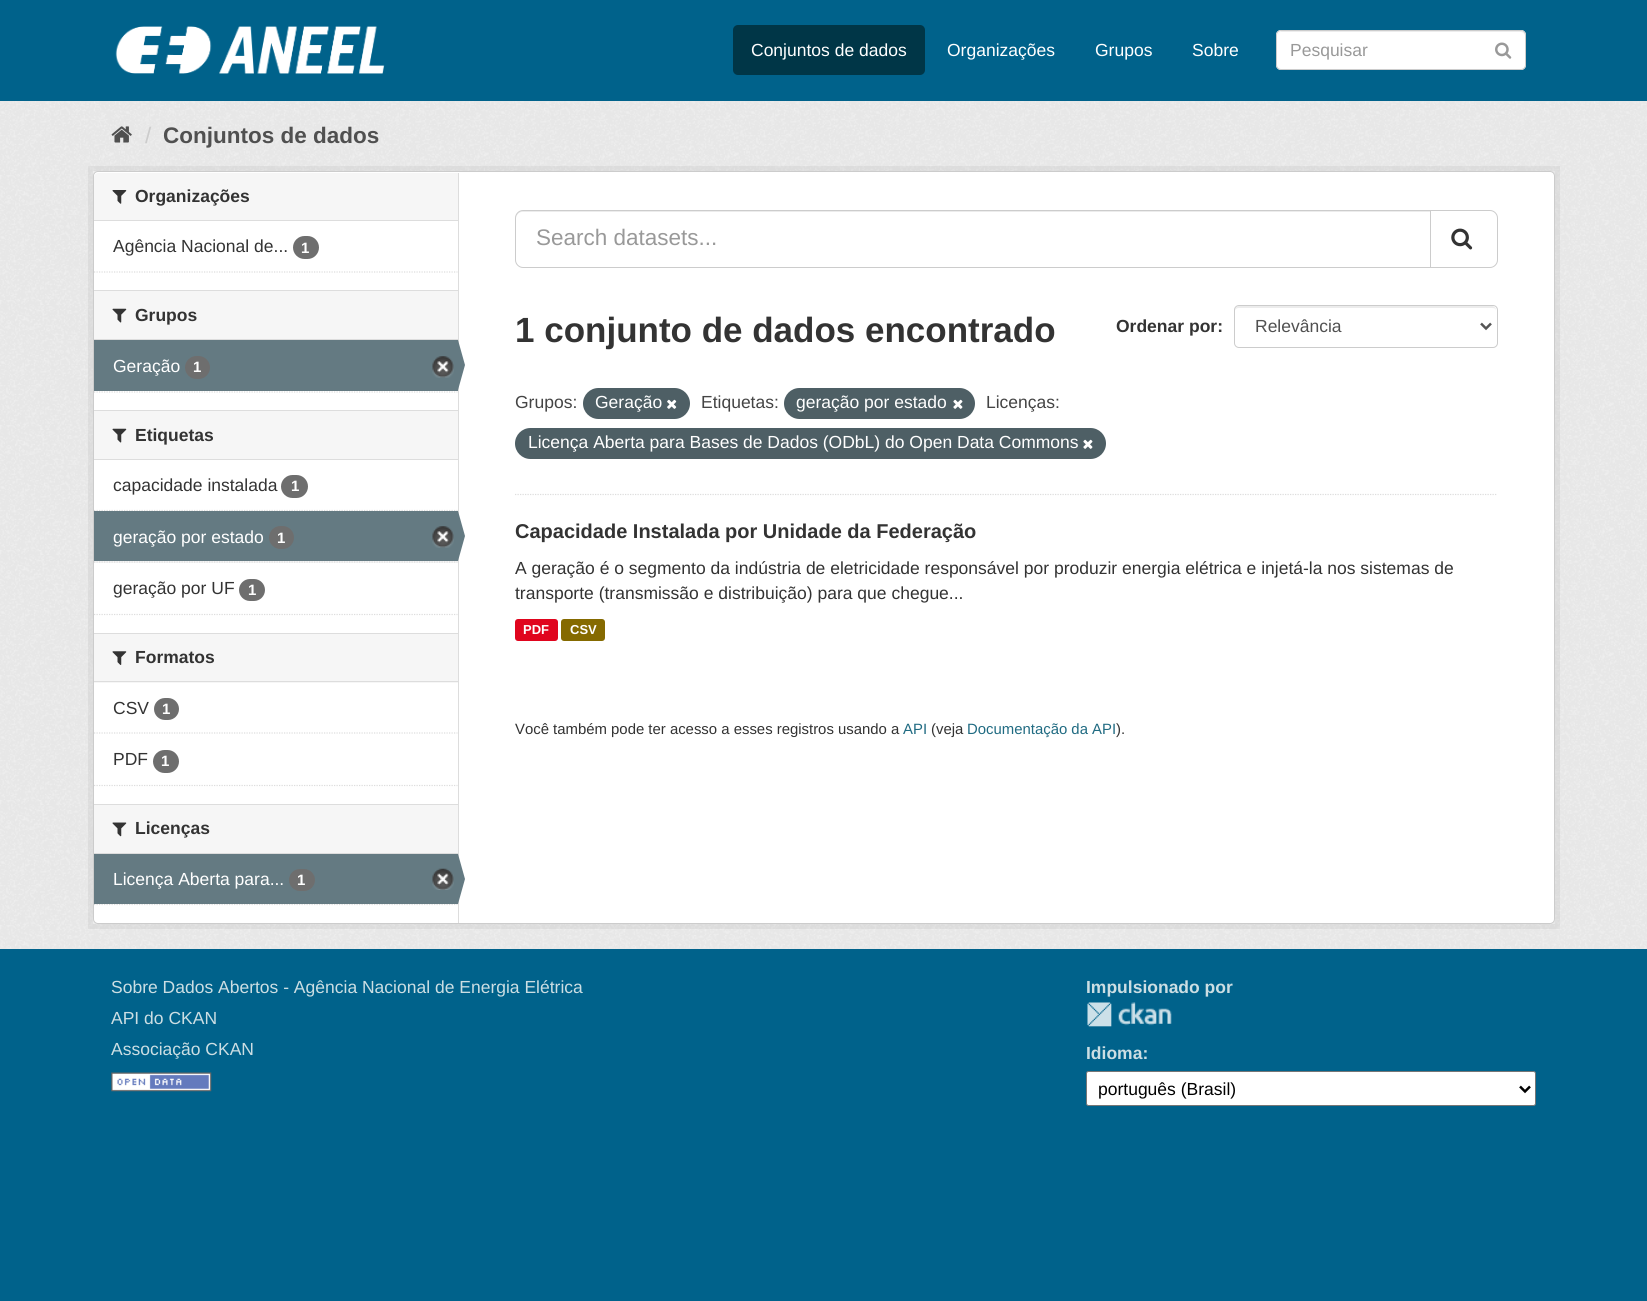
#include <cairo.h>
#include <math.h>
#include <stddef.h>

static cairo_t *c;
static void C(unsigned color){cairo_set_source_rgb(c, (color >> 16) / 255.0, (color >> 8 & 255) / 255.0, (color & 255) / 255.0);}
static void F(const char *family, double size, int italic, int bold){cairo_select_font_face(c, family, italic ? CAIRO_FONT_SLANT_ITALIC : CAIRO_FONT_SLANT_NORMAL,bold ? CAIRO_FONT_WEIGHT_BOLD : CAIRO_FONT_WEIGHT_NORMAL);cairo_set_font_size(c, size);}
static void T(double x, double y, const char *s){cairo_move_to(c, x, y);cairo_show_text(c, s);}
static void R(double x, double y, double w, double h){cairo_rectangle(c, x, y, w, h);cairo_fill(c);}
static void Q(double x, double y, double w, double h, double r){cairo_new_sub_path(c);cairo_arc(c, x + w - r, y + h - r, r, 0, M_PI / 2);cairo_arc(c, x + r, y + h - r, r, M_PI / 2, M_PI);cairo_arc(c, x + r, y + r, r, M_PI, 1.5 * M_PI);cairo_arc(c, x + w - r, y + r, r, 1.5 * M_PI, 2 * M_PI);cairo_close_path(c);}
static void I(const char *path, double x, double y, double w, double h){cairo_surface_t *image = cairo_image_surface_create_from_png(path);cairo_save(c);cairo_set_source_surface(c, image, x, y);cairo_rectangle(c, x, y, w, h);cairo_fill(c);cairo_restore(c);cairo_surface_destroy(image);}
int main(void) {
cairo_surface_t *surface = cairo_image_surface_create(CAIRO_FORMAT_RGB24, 1647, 1301);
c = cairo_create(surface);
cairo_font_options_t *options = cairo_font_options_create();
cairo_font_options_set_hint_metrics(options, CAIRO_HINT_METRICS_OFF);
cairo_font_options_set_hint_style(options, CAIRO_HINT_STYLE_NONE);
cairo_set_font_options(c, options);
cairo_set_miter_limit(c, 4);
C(0x00628b);
cairo_paint(c);
I("1.png",115,26,270,48);
C(0x003647);
Q(733,25,192,50,5);
cairo_fill(c);
F("Liberation Sans",17.5,0,0);
C(0xffffff);
T(751,56,"Conjuntos de dados");
T(947,56,"Organizações");
T(1095,56,"Grupos");
T(1192,56,"Sobre");
Q(1276,30,250,40,5);
cairo_fill(c);
C(0xececec);
cairo_new_path(c);
cairo_move_to(c,1281,32);
cairo_line_to(c,1521,32);
cairo_curve_to(c,1523,32,1525,34,1525,36);
cairo_line_to(c,1525,35);
cairo_curve_to(c,1525,33,1523,31,1521,31);
cairo_line_to(c,1282,31);
cairo_curve_to(c,1280,31,1278,33,1278,35);
cairo_line_to(c,1278,36);
cairo_curve_to(c,1278,34,1279,32,1281,32);
cairo_close_path(c);
cairo_fill(c);
Q(1276.5,30.5,249,39,4.5);
C(0xcccccc);
cairo_set_line_width(c,1);
cairo_stroke(c);
C(0x999999);
T(1290,56,"Pesquisar");
I("2.png",1495,42,17,17);
C(0xeeeeee);
R(0,101,1647,848);
I("3.png",0,101,1647,848);
I("4.png",111,126,21,17);
F("Liberation Sans",22.5,0,0);
C(0xcccccc);
T(145,143,"/");
F("Liberation Sans",22.5,0,1);
C(0x505050);
T(163,143,"Conjuntos de dados");
cairo_rectangle(c,90.5,168.5,1467,758);
cairo_set_source_rgba(c,0,0,0,0.05);
cairo_set_line_width(c,5);
cairo_stroke(c);
C(0xffffff);
Q(93.5,171.5,1461,752,4.5);
cairo_fill_preserve(c);
C(0xcccccc);
cairo_set_line_width(c,1);
cairo_stroke(c);
C(0xf6f6f6);
cairo_new_path(c);
cairo_move_to(c,98,173);
cairo_line_to(c,458,173);
cairo_line_to(c,458,221);
cairo_line_to(c,94,221);
cairo_line_to(c,94,177);
cairo_curve_to(c,94,175,96,173,98,173);
cairo_close_path(c);
cairo_fill(c);
C(0xdddddd);
R(94,220,364,1);
I("5.png",112,190,15,14);
F("Liberation Sans",17.5,0,1);
C(0x333333);
T(135,202,"Organizações");
F("Liberation Sans",17.5,0,0);
T(113,252,"Agência Nacional de...");
C(0x6e6e6e);
Q(293,236,26,23,11.5);
cairo_fill(c);
F("Liberation Sans",15,0,1);
C(0xffffff);
T(301,253,"1");
cairo_new_path(c);
cairo_move_to(c,94,272);
cairo_line_to(c,457.5,272);
C(0xdddddd);
cairo_set_line_width(c,1.2);
cairo_set_dash(c,(double[]){1.25,1.25},2,0);
cairo_stroke(c);
C(0xf6f6f6);
R(94,291,364,48);
C(0xdddddd);
R(94,290,364,1);
R(94,339,364,1);
I("6.png",112,308,15,15);
F("Liberation Sans",17.5,0,1);
C(0x333333);
T(135,321,"Grupos");
C(0x647a82);
R(94,340,364,51);
F("Liberation Sans",17.5,0,0);
C(0xffffff);
T(113,372,"Geração");
C(0x6e6e6e);
Q(185,356,25,23,11.5);
cairo_fill(c);
F("Liberation Sans",15,0,1);
C(0xffffff);
T(193,372,"1");
I("7.png",432,356,22,22);
C(0xdddddd);
R(458,173,1,750);
C(0x647a82);
cairo_new_path(c);
cairo_move_to(c,458,390);
cairo_line_to(c,458,340);
cairo_line_to(c,465,365);
cairo_close_path(c);
cairo_fill(c);
cairo_new_path(c);
cairo_move_to(c,94,392);
cairo_line_to(c,457.5,392);
C(0xdddddd);
cairo_stroke(c);
C(0xf6f6f6);
R(94,411,364,48);
C(0xdddddd);
R(94,410,364,1);
R(94,459,364,1);
I("6.png",112,428,15,15);
F("Liberation Sans",17.5,0,1);
C(0x333333);
T(135,441,"Etiquetas");
cairo_new_path(c);
cairo_move_to(c,94,510.5);
cairo_line_to(c,457.5,510.5);
C(0xdddddd);
cairo_stroke(c);
F("Liberation Sans",17.5,0,0);
C(0x333333);
T(113,491,"capacidade instalada");
C(0x6e6e6e);
Q(281,475,27,23,11.5);
cairo_fill(c);
F("Liberation Sans",15,0,1);
C(0xffffff);
T(291,491,"1");
C(0xf6f6f6);
R(94,561,364,2);
cairo_new_path(c);
cairo_move_to(c,94,562);
cairo_line_to(c,457.5,562);
C(0xdddddd);
cairo_stroke(c);
C(0x647a82);
R(94,511,364,50);
F("Liberation Sans",17.5,0,0);
C(0xffffff);
T(113,543,"geração por estado");
C(0x6e6e6e);
Q(269,526,25,23,11.5);
cairo_fill(c);
F("Liberation Sans",15,0,1);
C(0xffffff);
T(277,543,"1");
I("7.png",432,526,22,22);
C(0x647a82);
cairo_new_path(c);
cairo_move_to(c,458,561);
cairo_line_to(c,458,511);
cairo_line_to(c,465,536);
cairo_close_path(c);
cairo_fill(c);
F("Liberation Sans",17.5,0,0);
C(0x333333);
T(113,594,"geração por UF");
C(0x6e6e6e);
Q(239,579,26,22,11);
cairo_fill(c);
F("Liberation Sans",15,0,1);
C(0xffffff);
T(248,595,"1");
cairo_new_path(c);
cairo_move_to(c,94,614.5);
cairo_line_to(c,457.5,614.5);
C(0xdddddd);
cairo_stroke(c);
C(0xf6f6f6);
R(94,634,364,49);
C(0xdddddd);
R(94,633,364,1);
R(94,681,364,1);
I("8.png",112,651,15,14);
F("Liberation Sans",17.5,0,1);
C(0x333333);
T(135,663,"Formatos");
cairo_new_path(c);
cairo_move_to(c,94,733);
cairo_line_to(c,457.5,733);
C(0xdddddd);
cairo_stroke(c);
F("Liberation Sans",17.5,0,0);
C(0x333333);
T(113,714,"CSV");
C(0x6e6e6e);
Q(154,698,25,22,11);
cairo_fill(c);
F("Liberation Sans",15,0,1);
C(0xffffff);
T(162,714,"1");
F("Liberation Sans",17.5,0,0);
C(0x333333);
T(113,765,"PDF");
C(0x6e6e6e);
Q(153,750,26,23,11.5);
cairo_fill(c);
F("Liberation Sans",15,0,1);
C(0xffffff);
T(161,766,"1");
cairo_new_path(c);
cairo_move_to(c,94,785.5);
cairo_line_to(c,457.5,785.5);
C(0xdddddd);
cairo_stroke(c);
C(0xf6f6f6);
R(94,805,364,48);
C(0xdddddd);
R(94,804,364,1);
R(94,853,364,1);
I("9.png",112,822,15,15);
F("Liberation Sans",17.5,0,1);
C(0x333333);
T(135,834,"Licenças");
cairo_new_path(c);
cairo_move_to(c,94,904.5);
cairo_line_to(c,457.5,904.5);
C(0xdddddd);
cairo_stroke(c);
C(0x647a82);
R(94,854,364,50);
F("Liberation Sans",17.5,0,0);
C(0xffffff);
T(113,885,"Licença Aberta para...");
C(0x6e6e6e);
Q(289,869,26,22,11);
cairo_fill(c);
F("Liberation Sans",15,0,1);
C(0xffffff);
T(297,885,"1");
I("10.png",432,868,22,22);
C(0x647a82);
cairo_new_path(c);
cairo_move_to(c,458,904);
cairo_line_to(c,458,854);
cairo_line_to(c,465,879);
cairo_close_path(c);
cairo_fill(c);
cairo_new_path(c);
cairo_move_to(c,515,494.5);
cairo_line_to(c,1497.5,494.5);
C(0xdddddd);
cairo_stroke(c);
C(0xececec);
cairo_new_path(c);
cairo_move_to(c,522,212);
cairo_line_to(c,1430,212);
cairo_line_to(c,1430,211);
cairo_line_to(c,522,211);
cairo_curve_to(c,517,211,516,215,516,219);
cairo_curve_to(c,516,215,519,212,522,212);
cairo_close_path(c);
cairo_fill(c);
cairo_new_path(c);
cairo_move_to(c,523,210.5);
cairo_line_to(c,1430.5,210.5);
cairo_line_to(c,1430.5,267.5);
cairo_line_to(c,523,267.5);
cairo_curve_to(c,519,267.5,515.5,264,515.5,260);
cairo_line_to(c,515.5,218);
cairo_curve_to(c,515.5,214,519,210.5,523,210.5);
cairo_close_path(c);
C(0xcccccc);
cairo_set_line_width(c,1);
cairo_set_dash(c,NULL,0,0);
cairo_stroke(c);
F("Liberation Sans",22.5,0,0);
C(0x999999);
T(536,245,"Search datasets...");
C(0xffffff);
cairo_new_path(c);
cairo_move_to(c,1430.5,210.5);
cairo_line_to(c,1490,210.5);
cairo_curve_to(c,1494,210.5,1497.5,214,1497.5,218);
cairo_line_to(c,1497.5,260);
cairo_curve_to(c,1497.5,264,1494,267.5,1490,267.5);
cairo_line_to(c,1430.5,267.5);
cairo_close_path(c);
cairo_fill_preserve(c);
C(0xcccccc);
cairo_stroke(c);
I("11.png",1451,228,22,22);
F("Liberation Sans",35,0,1);
C(0x333333);
T(515,342,"1 conjunto de dados encontrado");
F("Liberation Sans",17.5,0,1);
T(1116,332,"Ordenar por:");
C(0xececec);
cairo_new_path(c);
cairo_move_to(c,1239,308);
cairo_line_to(c,1492,308);
cairo_curve_to(c,1495,308,1496,309,1496,311);
cairo_line_to(c,1496,310);
cairo_curve_to(c,1496,308,1494,306,1492,306);
cairo_line_to(c,1239,306);
cairo_curve_to(c,1237,306,1235,308,1235,310);
cairo_line_to(c,1235,311);
cairo_curve_to(c,1235,309,1237,308,1239,308);
cairo_close_path(c);
cairo_fill(c);
Q(1234.5,305.5,263,42,4.5);
C(0xcccccc);
cairo_stroke(c);
cairo_new_path(c);
cairo_move_to(c,1481,323.5);
cairo_line_to(c,1486,328.5);
cairo_line_to(c,1491,323.5);
C(0x555555);
cairo_set_line_width(c,2.5);
cairo_stroke(c);
F("Liberation Sans",17.5,0,0);
C(0x505050);
T(1255,332,"Relevância");
C(0x444444);
T(515,408,"Grupos:");
C(0x4e5f65);
Q(583,388,107,31,15.5);
cairo_fill(c);
C(0xffffff);
T(595,408,"Geração");
I("12.png",667,399,10,10);
C(0x444444);
T(701,408,"Etiquetas:");
C(0x4e5f65);
Q(784,388,191,31,15.5);
cairo_fill(c);
C(0xffffff);
T(796,408,"geração por estado");
I("13.png",953,399,10,10);
C(0x444444);
T(986,408,"Licenças:");
C(0x4e5f65);
Q(515,428,591,31,15.5);
cairo_fill(c);
C(0xffffff);
T(528,448,"Licença Aberta para Bases de Dados (ODbL) do Open Data Commons");
I("13.png",1083,439,10,10);
F("Liberation Sans",20,0,1);
C(0x333333);
T(515,538,"Capacidade Instalada por Unidade da Federação");
F("Liberation Sans",17.5,0,0);
T(515,574,"A geração é o segmento da indústria de eletricidade responsável por produzir energia elétrica e injetá-la nos sistemas de");
T(515,599,"transporte (transmissão e distribuição) para que chegue...");
C(0xe0051e);
Q(515,619,43,22,3);
cairo_fill(c);
F("Liberation Sans",13,0,1);
C(0xffffff);
T(523,634,"PDF");
C(0x856a00);
Q(561,619,44,22,3);
cairo_fill(c);
C(0xffffff);
T(570,634,"CSV");
F("Liberation Sans",14.9,0,0);
C(0x333333);
T(515,734,"Você também pode ter acesso a esses registros usando a");
C(0x206b82);
T(903,734,"API");
C(0x333333);
T(931,734,"(veja");
C(0x206b82);
T(967,734,"Documentação da API");
C(0x333333);
T(1116,734,").");
F("Liberation Sans",17.5,0,0);
C(0xccdee3);
T(111,993,"Sobre Dados Abertos - Agência Nacional de Energia Elétrica");
T(111,1024,"API do CKAN");
T(111,1055,"Associação CKAN");
I("14.png",111,1072,101,20);
F("Liberation Sans",17.5,0,1);
T(1086,993,"Impulsionado por");
I("15.png",1087,1002,85,25);
T(1086,1059,"Idioma:");
C(0xffffff);
Q(1086.5,1071.5,449,34,2);
cairo_fill_preserve(c);
C(0x767676);
cairo_set_line_width(c,1);
cairo_stroke(c);
cairo_new_path(c);
cairo_move_to(c,1520,1086.5);
cairo_line_to(c,1525,1091.5);
cairo_line_to(c,1530,1086.5);
C(0x000000);
cairo_set_line_width(c,2.5);
cairo_stroke(c);
F("Liberation Sans",17.5,0,0);
T(1098,1095,"português (Brasil)");
cairo_surface_write_to_png(surface, "o.png");
cairo_font_options_destroy(options);
cairo_destroy(c);
cairo_surface_destroy(surface);
return 0;
}
